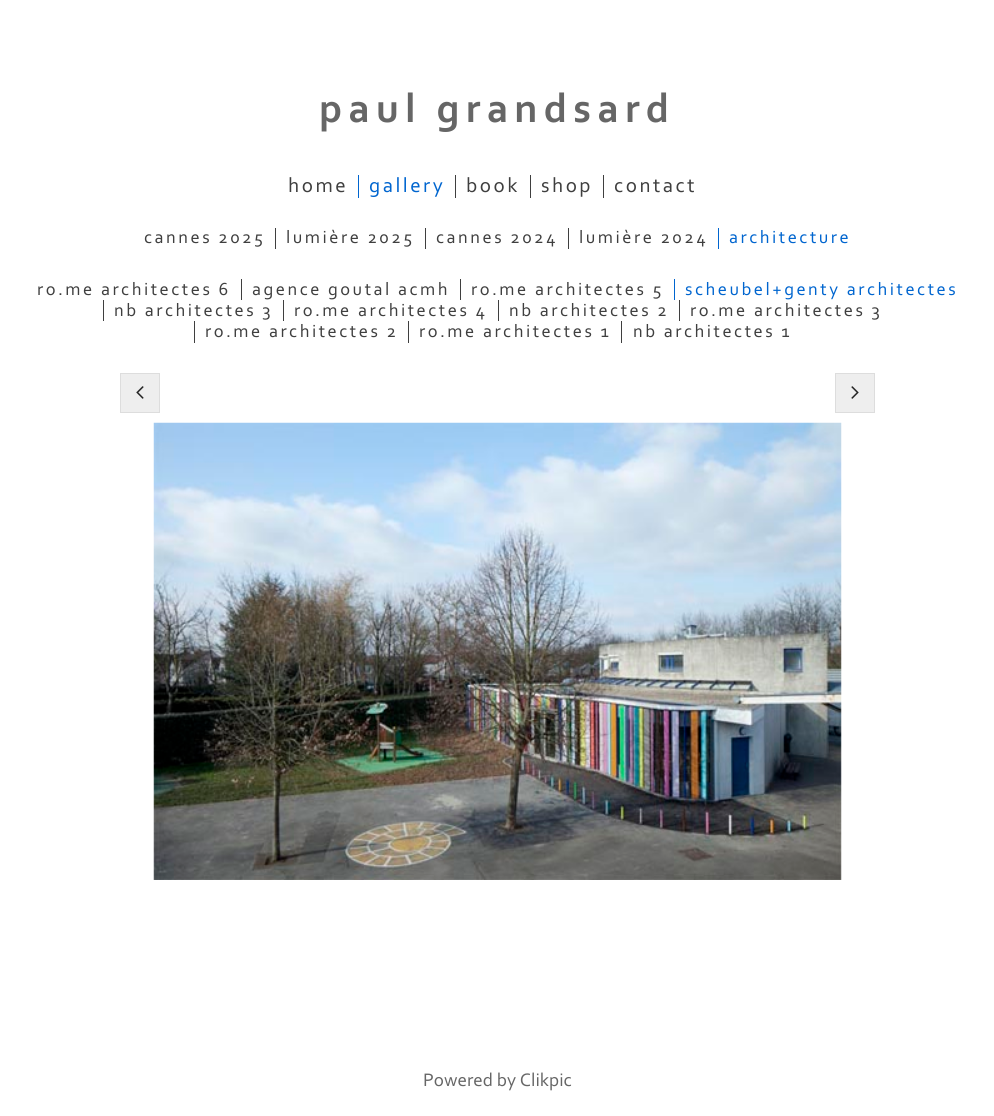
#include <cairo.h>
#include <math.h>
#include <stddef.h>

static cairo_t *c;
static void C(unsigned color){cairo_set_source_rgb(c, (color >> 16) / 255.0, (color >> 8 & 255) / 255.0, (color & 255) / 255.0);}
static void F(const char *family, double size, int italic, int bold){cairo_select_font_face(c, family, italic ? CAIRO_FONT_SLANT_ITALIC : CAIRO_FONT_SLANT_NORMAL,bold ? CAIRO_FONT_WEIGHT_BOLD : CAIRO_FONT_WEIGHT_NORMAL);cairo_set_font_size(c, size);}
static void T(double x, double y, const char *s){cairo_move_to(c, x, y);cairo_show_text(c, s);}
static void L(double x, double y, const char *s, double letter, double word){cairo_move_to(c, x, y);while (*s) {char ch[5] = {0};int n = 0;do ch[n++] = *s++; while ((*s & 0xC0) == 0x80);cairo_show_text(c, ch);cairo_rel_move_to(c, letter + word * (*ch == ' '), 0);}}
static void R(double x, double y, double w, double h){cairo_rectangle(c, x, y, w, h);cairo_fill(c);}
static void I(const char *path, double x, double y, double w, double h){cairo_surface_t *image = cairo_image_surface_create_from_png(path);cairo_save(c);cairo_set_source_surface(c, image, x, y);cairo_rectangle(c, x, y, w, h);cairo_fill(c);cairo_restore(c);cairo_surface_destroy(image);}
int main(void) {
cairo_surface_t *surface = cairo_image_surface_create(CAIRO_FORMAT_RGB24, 994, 1116);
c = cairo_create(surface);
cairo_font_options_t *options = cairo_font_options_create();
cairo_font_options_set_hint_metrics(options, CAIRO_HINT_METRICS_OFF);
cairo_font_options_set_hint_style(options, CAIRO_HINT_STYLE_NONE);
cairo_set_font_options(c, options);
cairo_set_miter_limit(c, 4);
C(0xffffff);
cairo_paint(c);
F("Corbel",41.75,0,1);
C(0x666666);
L(319,122,"paul grandsard",6.25,0);
F("Corbel",21,0,0);
C(0x3f3f3f);
L(288,192,"home",2.5,0);
C(0x0065cf);
R(358,175,1,23);
L(369,192,"gallery",2.5,0);
C(0x3f3f3f);
R(455,175,1,23);
L(466,192,"book",2.5,0);
R(530,175,1,23);
L(541,192,"shop",2.5,0);
R(603,175,1,23);
L(614,192,"contact",2.5,0);
F("Corbel",18.4,0,0);
L(144,243,"cannes 2025",2.5,0);
R(275,228,1,21);
L(286,243,"lumière 2025",2.5,0);
R(425,228,1,21);
L(436,243,"cannes 2024",2.5,0);
R(568,228,1,21);
L(579,243,"lumière 2024",2.5,0);
C(0x0065cf);
R(718,228,1,21);
L(729,243,"architecture",2.5,0);
C(0x3f3f3f);
L(37,295,"ro.me architectes 6",2.5,0);
R(241,279,1,21);
L(252,295,"agence goutal acmh",2.5,0);
R(460,279,1,21);
L(471,295,"ro.me architectes 5",2.5,0);
C(0x0065cf);
R(674,279,1,21);
L(685,295,"scheubel+genty architectes",2.5,0);
C(0x3f3f3f);
R(103,300,1,21);
L(114,316,"nb architectes 3",2.5,0);
R(283,300,1,21);
L(294,316,"ro.me architectes 4",2.5,0);
R(498,300,1,21);
L(509,316,"nb architectes 2",2.5,0);
R(679,300,1,21);
L(690,316,"ro.me architectes 3",2.5,0);
R(194,321,1,22);
L(205,337,"ro.me architectes 2",2.5,0);
R(408,321,1,22);
L(419,337,"ro.me architectes 1",2.5,0);
R(621,321,1,22);
L(633,337,"nb architectes 1",2.5,0);
C(0xeeeeee);
cairo_rectangle(c,120.5,373.5,39,39);
cairo_fill_preserve(c);
C(0xdddddd);
cairo_set_line_width(c,1);
cairo_stroke(c);
I("1.png",136,386,8,13);
C(0xeeeeee);
cairo_rectangle(c,835.5,373.5,39,39);
cairo_fill_preserve(c);
C(0xdddddd);
cairo_stroke(c);
I("2.png",851,386,8,13);
I("3.png",153,422,689,458);
F("Corbel",19,0,0);
C(0x666666);
T(423,1086,"Powered by Clikpic");
cairo_surface_write_to_png(surface, "o.png");
cairo_font_options_destroy(options);
cairo_destroy(c);
cairo_surface_destroy(surface);
return 0;
}
